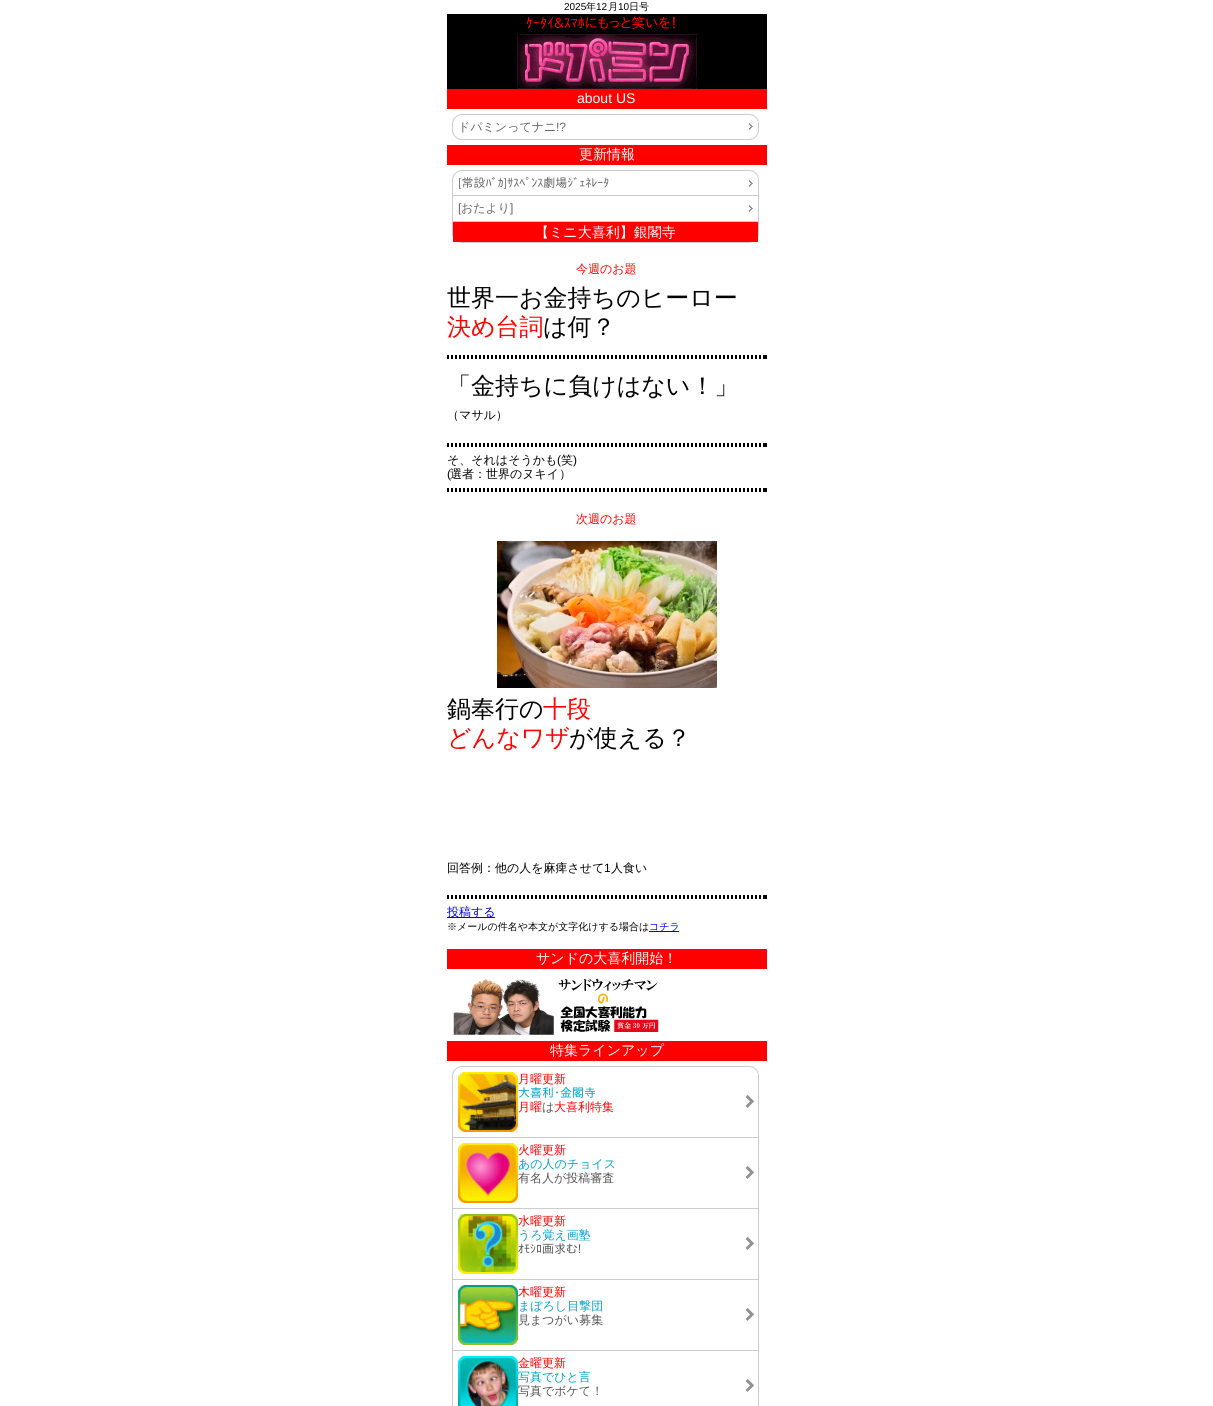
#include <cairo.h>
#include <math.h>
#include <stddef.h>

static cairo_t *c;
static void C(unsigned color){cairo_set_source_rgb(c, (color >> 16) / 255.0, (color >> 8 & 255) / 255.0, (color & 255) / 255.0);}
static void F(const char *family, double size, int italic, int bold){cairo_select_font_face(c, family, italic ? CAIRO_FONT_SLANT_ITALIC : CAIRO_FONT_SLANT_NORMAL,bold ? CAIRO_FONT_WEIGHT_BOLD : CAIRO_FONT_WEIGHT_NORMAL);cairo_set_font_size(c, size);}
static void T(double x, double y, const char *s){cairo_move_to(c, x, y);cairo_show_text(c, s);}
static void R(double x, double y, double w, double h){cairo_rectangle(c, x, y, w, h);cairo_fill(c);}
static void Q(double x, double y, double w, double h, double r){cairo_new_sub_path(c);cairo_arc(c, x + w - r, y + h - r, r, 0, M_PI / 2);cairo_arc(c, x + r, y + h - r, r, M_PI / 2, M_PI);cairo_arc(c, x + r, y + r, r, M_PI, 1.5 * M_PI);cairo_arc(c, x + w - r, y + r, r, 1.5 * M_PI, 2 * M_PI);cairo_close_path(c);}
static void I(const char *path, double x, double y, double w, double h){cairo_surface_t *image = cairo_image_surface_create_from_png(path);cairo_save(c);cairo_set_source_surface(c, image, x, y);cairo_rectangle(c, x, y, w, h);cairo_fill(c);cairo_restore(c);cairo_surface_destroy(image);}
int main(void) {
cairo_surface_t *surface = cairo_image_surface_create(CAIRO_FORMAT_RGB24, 1213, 1406);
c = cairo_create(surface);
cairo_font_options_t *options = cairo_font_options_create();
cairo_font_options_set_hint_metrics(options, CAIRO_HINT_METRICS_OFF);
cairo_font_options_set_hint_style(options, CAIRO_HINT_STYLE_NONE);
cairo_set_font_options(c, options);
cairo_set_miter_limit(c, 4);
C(0xffffff);
cairo_paint(c);
F("Liberation Sans",10,0,0);
C(0x000000);
T(564,10,"2025");
F("WenQuanYi Zen Hei Medium",10,0,0);
T(586,10,"年");
F("Liberation Sans",10,0,0);
T(596,10,"12");
F("WenQuanYi Zen Hei Medium",10,0,0);
T(608,10,"月");
F("Liberation Sans",10,0,0);
T(618,10,"10");
F("WenQuanYi Zen Hei Medium",10,0,0);
T(629,10,"日号");
R(447,14,320,75);
F("IPAPGothic",14,0,0);
C(0xff0000);
T(526,28,"ｹｰﾀｲ&ｽﾏﾎにもっと笑いを！");
I("1.png",517,34,180,55);
R(447,89,320,20);
F("Liberation Sans",14,0,0);
C(0xffffff);
T(577,103,"about US");
Q(452.5,114.5,306,25,9.5);
C(0xcccccc);
cairo_set_line_width(c,1);
cairo_stroke(c);
I("2.png",748,121,10,11);
F("WenQuanYi Zen Hei Medium",12,0,0);
C(0x666666);
T(458,131,"ドパミンってナニ");
F("Liberation Sans",12,0,0);
T(556,131,"!?");
C(0xff0000);
R(447,145,320,20);
F("WenQuanYi Zen Hei Medium",14,0,0);
C(0xffffff);
T(579,159,"更新情報");
Q(452.5,170.5,306,72,9.5);
C(0xcccccc);
cairo_stroke(c);
I("3.png",748,178,10,9);
R(453,195,305,1);
F("IPAPGothic",12,0,0);
C(0x666666);
T(458,187,"[常設ﾊﾞｶ]ｻｽﾍﾟﾝｽ劇場ｼﾞｪﾈﾚｰﾀ");
I("4.png",748,205,5,7);
C(0xcccccc);
R(453,221,305,1);
F("Liberation Sans",12,0,0);
C(0x666666);
T(458,212,"[");
F("WenQuanYi Zen Hei Medium",12,0,0);
T(461,212,"おたより");
F("Liberation Sans",12,0,0);
T(510,212,"]");
C(0xff0000);
R(453,222,305,20);
F("WenQuanYi Zen Hei Medium",14,0,0);
C(0xffffff);
T(535,237,"【ミニ大喜利】銀閣寺");
F("WenQuanYi Zen Hei Medium",12,0,0);
C(0xff0000);
T(576,273,"今週のお題");
F("WenQuanYi Zen Hei Medium",24,0,0);
C(0x000000);
T(447,306,"世界一お金持ちのヒーロー");
C(0xff0000);
T(447,335,"決め台詞");
C(0x000000);
T(543,335,"は何？");
cairo_new_path(c);
cairo_move_to(c,447,356);
cairo_line_to(c,767,356);
cairo_set_line_width(c,2);
cairo_set_dash(c,(double[]){2,2},2,0);
cairo_stroke(c);
R(765,355,2,4);
cairo_new_path(c);
cairo_move_to(c,447,358);
cairo_line_to(c,767,358);
cairo_stroke(c);
T(447,394,"「金持ちに負けはない！」");
F("WenQuanYi Zen Hei Medium",12,0,0);
T(447,419,"（マサル）");
cairo_new_path(c);
cairo_move_to(c,447,444);
cairo_line_to(c,767,444);
cairo_stroke(c);
R(765,443,2,4);
cairo_new_path(c);
cairo_move_to(c,447,446);
cairo_line_to(c,767,446);
cairo_stroke(c);
T(447,464,"そ、それはそうかも");
F("Liberation Sans",12,0,0);
T(557,464,"(");
F("WenQuanYi Zen Hei Medium",12,0,0);
T(561,464,"笑");
F("Liberation Sans",12,0,0);
T(573,464,")");
T(447,478,"(");
F("WenQuanYi Zen Hei Medium",12,0,0);
T(450,478,"選者：世界のヌキイ）");
cairo_new_path(c);
cairo_move_to(c,447,489);
cairo_line_to(c,767,489);
cairo_stroke(c);
R(765,488,2,4);
cairo_new_path(c);
cairo_move_to(c,447,491);
cairo_line_to(c,767,491);
cairo_stroke(c);
C(0xff0000);
T(576,523,"次週のお題");
I("5.png",497,541,220,147);
F("WenQuanYi Zen Hei Medium",24,0,0);
C(0x000000);
T(447,717,"鍋奉行の");
C(0xff0000);
T(543,717,"十段");
T(447,746,"どんなワザ");
C(0x000000);
T(569,746,"が使える？");
F("WenQuanYi Zen Hei Medium",12,0,0);
T(447,872,"回答例：他の人を麻痺させて");
F("Liberation Sans",12,0,0);
T(604,872,"1");
F("WenQuanYi Zen Hei Medium",12,0,0);
T(611,872,"人食い");
cairo_new_path(c);
cairo_move_to(c,447,896);
cairo_line_to(c,767,896);
cairo_stroke(c);
R(765,895,2,4);
cairo_new_path(c);
cairo_move_to(c,447,898);
cairo_line_to(c,767,898);
cairo_stroke(c);
C(0x0000ee);
R(447,917,48,1);
T(447,916,"投稿する");
F("WenQuanYi Zen Hei Medium",10,0,0);
C(0x000000);
T(447,930,"※メールの件名や本文が文字化けする場合は");
C(0x0000ee);
R(649,931,30,1);
T(649,930,"コチラ");
C(0xff0000);
R(447,949,320,20);
F("WenQuanYi Zen Hei Medium",14,0,0);
C(0xffffff);
T(536,963,"サンドの大喜利開始！");
I("6.png",453,975,206,60);
C(0xff0000);
R(447,1041,320,20);
C(0xffffff);
T(550,1055,"特集ラインアップ");
Q(452.5,1066.5,306,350,9.5);
C(0xcccccc);
cairo_set_line_width(c,1);
cairo_set_dash(c,NULL,0,0);
cairo_stroke(c);
I("7.png",745,1073,13,35);
R(453,1137,305,1);
I("8.png",458,1072,60,60);
F("WenQuanYi Zen Hei Medium",12,0,0);
C(0xff0000);
T(518,1083,"月曜更新");
F("IPAPGothic",12,0,0);
C(0x00a0c6);
T(518,1097,"大喜利･金閣寺");
F("WenQuanYi Zen Hei Medium",12,0,0);
C(0xff0000);
T(518,1111,"月曜");
C(0x555555);
T(542,1111,"は");
C(0xff0000);
T(554,1111,"大喜利特集");
I("9.png",745,1166,9,13);
C(0xcccccc);
R(453,1208,305,1);
I("10.png",458,1143,60,60);
C(0xff0000);
T(518,1154,"火曜更新");
C(0x00a0c6);
T(518,1168,"あの人のチョイス");
C(0x555555);
T(518,1182,"有名人が投稿審査");
I("9.png",745,1237,9,13);
C(0xcccccc);
R(453,1279,305,1);
I("11.png",458,1214,60,60);
C(0xff0000);
T(518,1225,"水曜更新");
C(0x00a0c6);
T(518,1239,"うろ覚え画塾");
F("IPAPGothic",12,0,0);
C(0x555555);
T(518,1253,"ｵﾓｼﾛ画求む!");
I("9.png",745,1308,9,13);
C(0xcccccc);
R(453,1350,305,1);
I("12.png",458,1285,60,60);
F("WenQuanYi Zen Hei Medium",12,0,0);
C(0xff0000);
T(518,1296,"木曜更新");
C(0x00a0c6);
T(518,1310,"まぼろし目撃団");
C(0x555555);
T(518,1324,"見まつがい募集");
I("9.png",745,1379,9,13);
I("13.png",458,1356,60,50);
C(0xff0000);
T(518,1367,"金曜更新");
C(0x00a0c6);
T(518,1381,"写真でひと言");
C(0x555555);
T(518,1395,"写真でボケて！");
cairo_surface_write_to_png(surface, "o.png");
cairo_font_options_destroy(options);
cairo_destroy(c);
cairo_surface_destroy(surface);
return 0;
}
